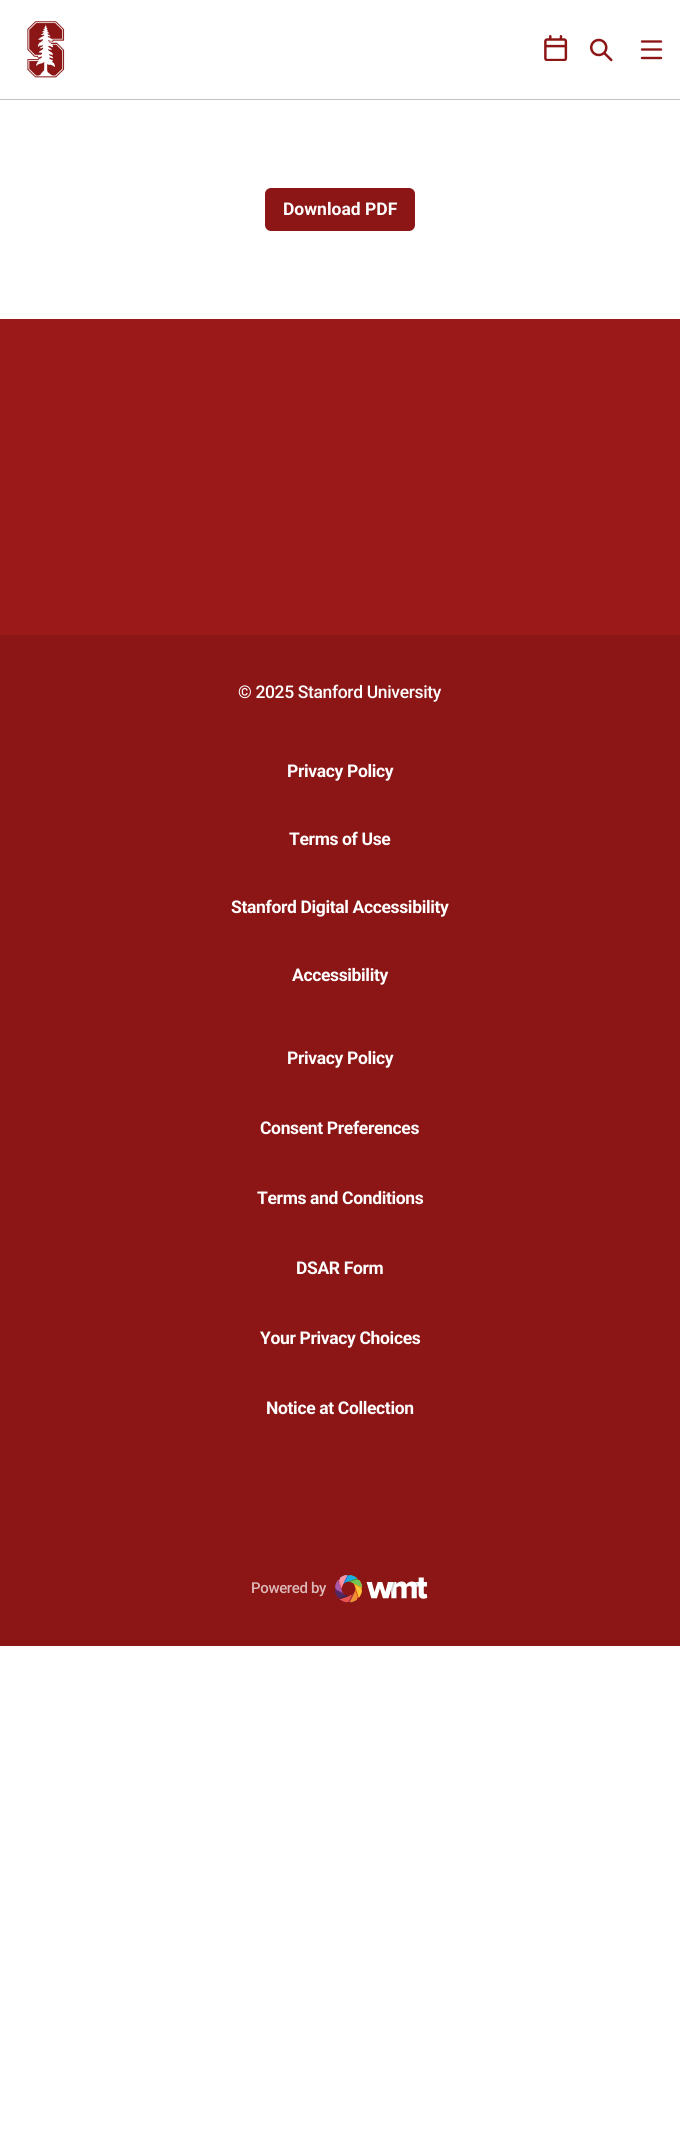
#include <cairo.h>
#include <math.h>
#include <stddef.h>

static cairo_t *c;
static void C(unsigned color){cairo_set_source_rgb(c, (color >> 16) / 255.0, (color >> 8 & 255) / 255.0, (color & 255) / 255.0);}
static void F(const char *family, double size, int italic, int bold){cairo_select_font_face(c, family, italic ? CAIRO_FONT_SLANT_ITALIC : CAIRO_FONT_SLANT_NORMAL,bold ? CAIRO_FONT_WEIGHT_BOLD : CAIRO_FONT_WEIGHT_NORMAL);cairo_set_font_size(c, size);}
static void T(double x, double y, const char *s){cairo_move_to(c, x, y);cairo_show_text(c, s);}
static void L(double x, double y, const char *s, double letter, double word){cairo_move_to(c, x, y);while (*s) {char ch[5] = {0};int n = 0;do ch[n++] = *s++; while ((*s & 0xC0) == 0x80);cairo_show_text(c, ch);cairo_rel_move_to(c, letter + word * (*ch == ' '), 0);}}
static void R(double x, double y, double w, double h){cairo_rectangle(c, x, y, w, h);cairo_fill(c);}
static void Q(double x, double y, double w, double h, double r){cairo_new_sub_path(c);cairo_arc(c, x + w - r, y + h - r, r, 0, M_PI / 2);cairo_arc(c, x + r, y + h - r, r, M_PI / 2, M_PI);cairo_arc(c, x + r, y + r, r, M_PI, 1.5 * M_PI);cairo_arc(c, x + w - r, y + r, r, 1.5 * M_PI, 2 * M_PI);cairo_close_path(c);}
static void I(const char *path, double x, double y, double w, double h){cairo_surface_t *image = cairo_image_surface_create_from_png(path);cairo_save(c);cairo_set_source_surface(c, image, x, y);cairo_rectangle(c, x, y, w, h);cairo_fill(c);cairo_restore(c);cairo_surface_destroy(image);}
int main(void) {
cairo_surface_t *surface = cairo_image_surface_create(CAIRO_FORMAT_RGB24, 680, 2155);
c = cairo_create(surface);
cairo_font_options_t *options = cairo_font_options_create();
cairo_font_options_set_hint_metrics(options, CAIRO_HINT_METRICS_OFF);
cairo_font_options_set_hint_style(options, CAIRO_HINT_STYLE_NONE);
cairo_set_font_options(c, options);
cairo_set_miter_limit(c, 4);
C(0xffffff);
cairo_paint(c);
C(0xc4c1be);
R(0,99,680,1);
I("1.png",27,21,38,57);
I("2.png",544,35,24,26);
I("3.png",590,38,23,24);
cairo_new_path(c);
cairo_move_to(c,642,41.5);
cairo_line_to(c,661,41.5);
cairo_move_to(c,642,49.5);
cairo_line_to(c,661,49.5);
cairo_move_to(c,661,58);
cairo_line_to(c,642,58);
C(0x8c1515);
cairo_set_line_width(c,2.4);
cairo_set_line_cap(c,CAIRO_LINE_CAP_ROUND);
cairo_stroke(c);
Q(265,188,150,43,6);
cairo_fill(c);
F("Roboto",17.5,0,1);
C(0xffffff);
T(283,215,"Download PDF");
C(0x9b1919);
R(0,319,680,316);
C(0x8c1515);
R(0,635,680,1011);
F("Roboto Medium",17.5,0,0);
C(0xffffff);
L(238,698,"© 2025 Stanford University",-.35,0);
F("Roboto",17.5,0,1);
L(287,777,"Privacy Policy",-.35,0);
L(289,845,"Terms of Use",-.35,0);
L(231,913,"Stanford Digital Accessibility",-.35,0);
L(292,981,"Accessibility",-.35,0);
L(287,1064,"Privacy Policy",-.35,0);
L(260,1134,"Consent Preferences",-.35,0);
L(257,1204,"Terms and Conditions",-.35,0);
L(296,1274,"DSAR Form",-.35,0);
L(260,1344,"Your Privacy Choices",-.35,0);
L(266,1414,"Notice at Collection",-.35,0);
F("Roboto Medium",15,0,0);
C(0xddb9b9);
L(251,1593,"Powered by",-.35,0);
I("4.png",335,1575,93,28);
cairo_surface_write_to_png(surface, "o.png");
cairo_font_options_destroy(options);
cairo_destroy(c);
cairo_surface_destroy(surface);
return 0;
}
